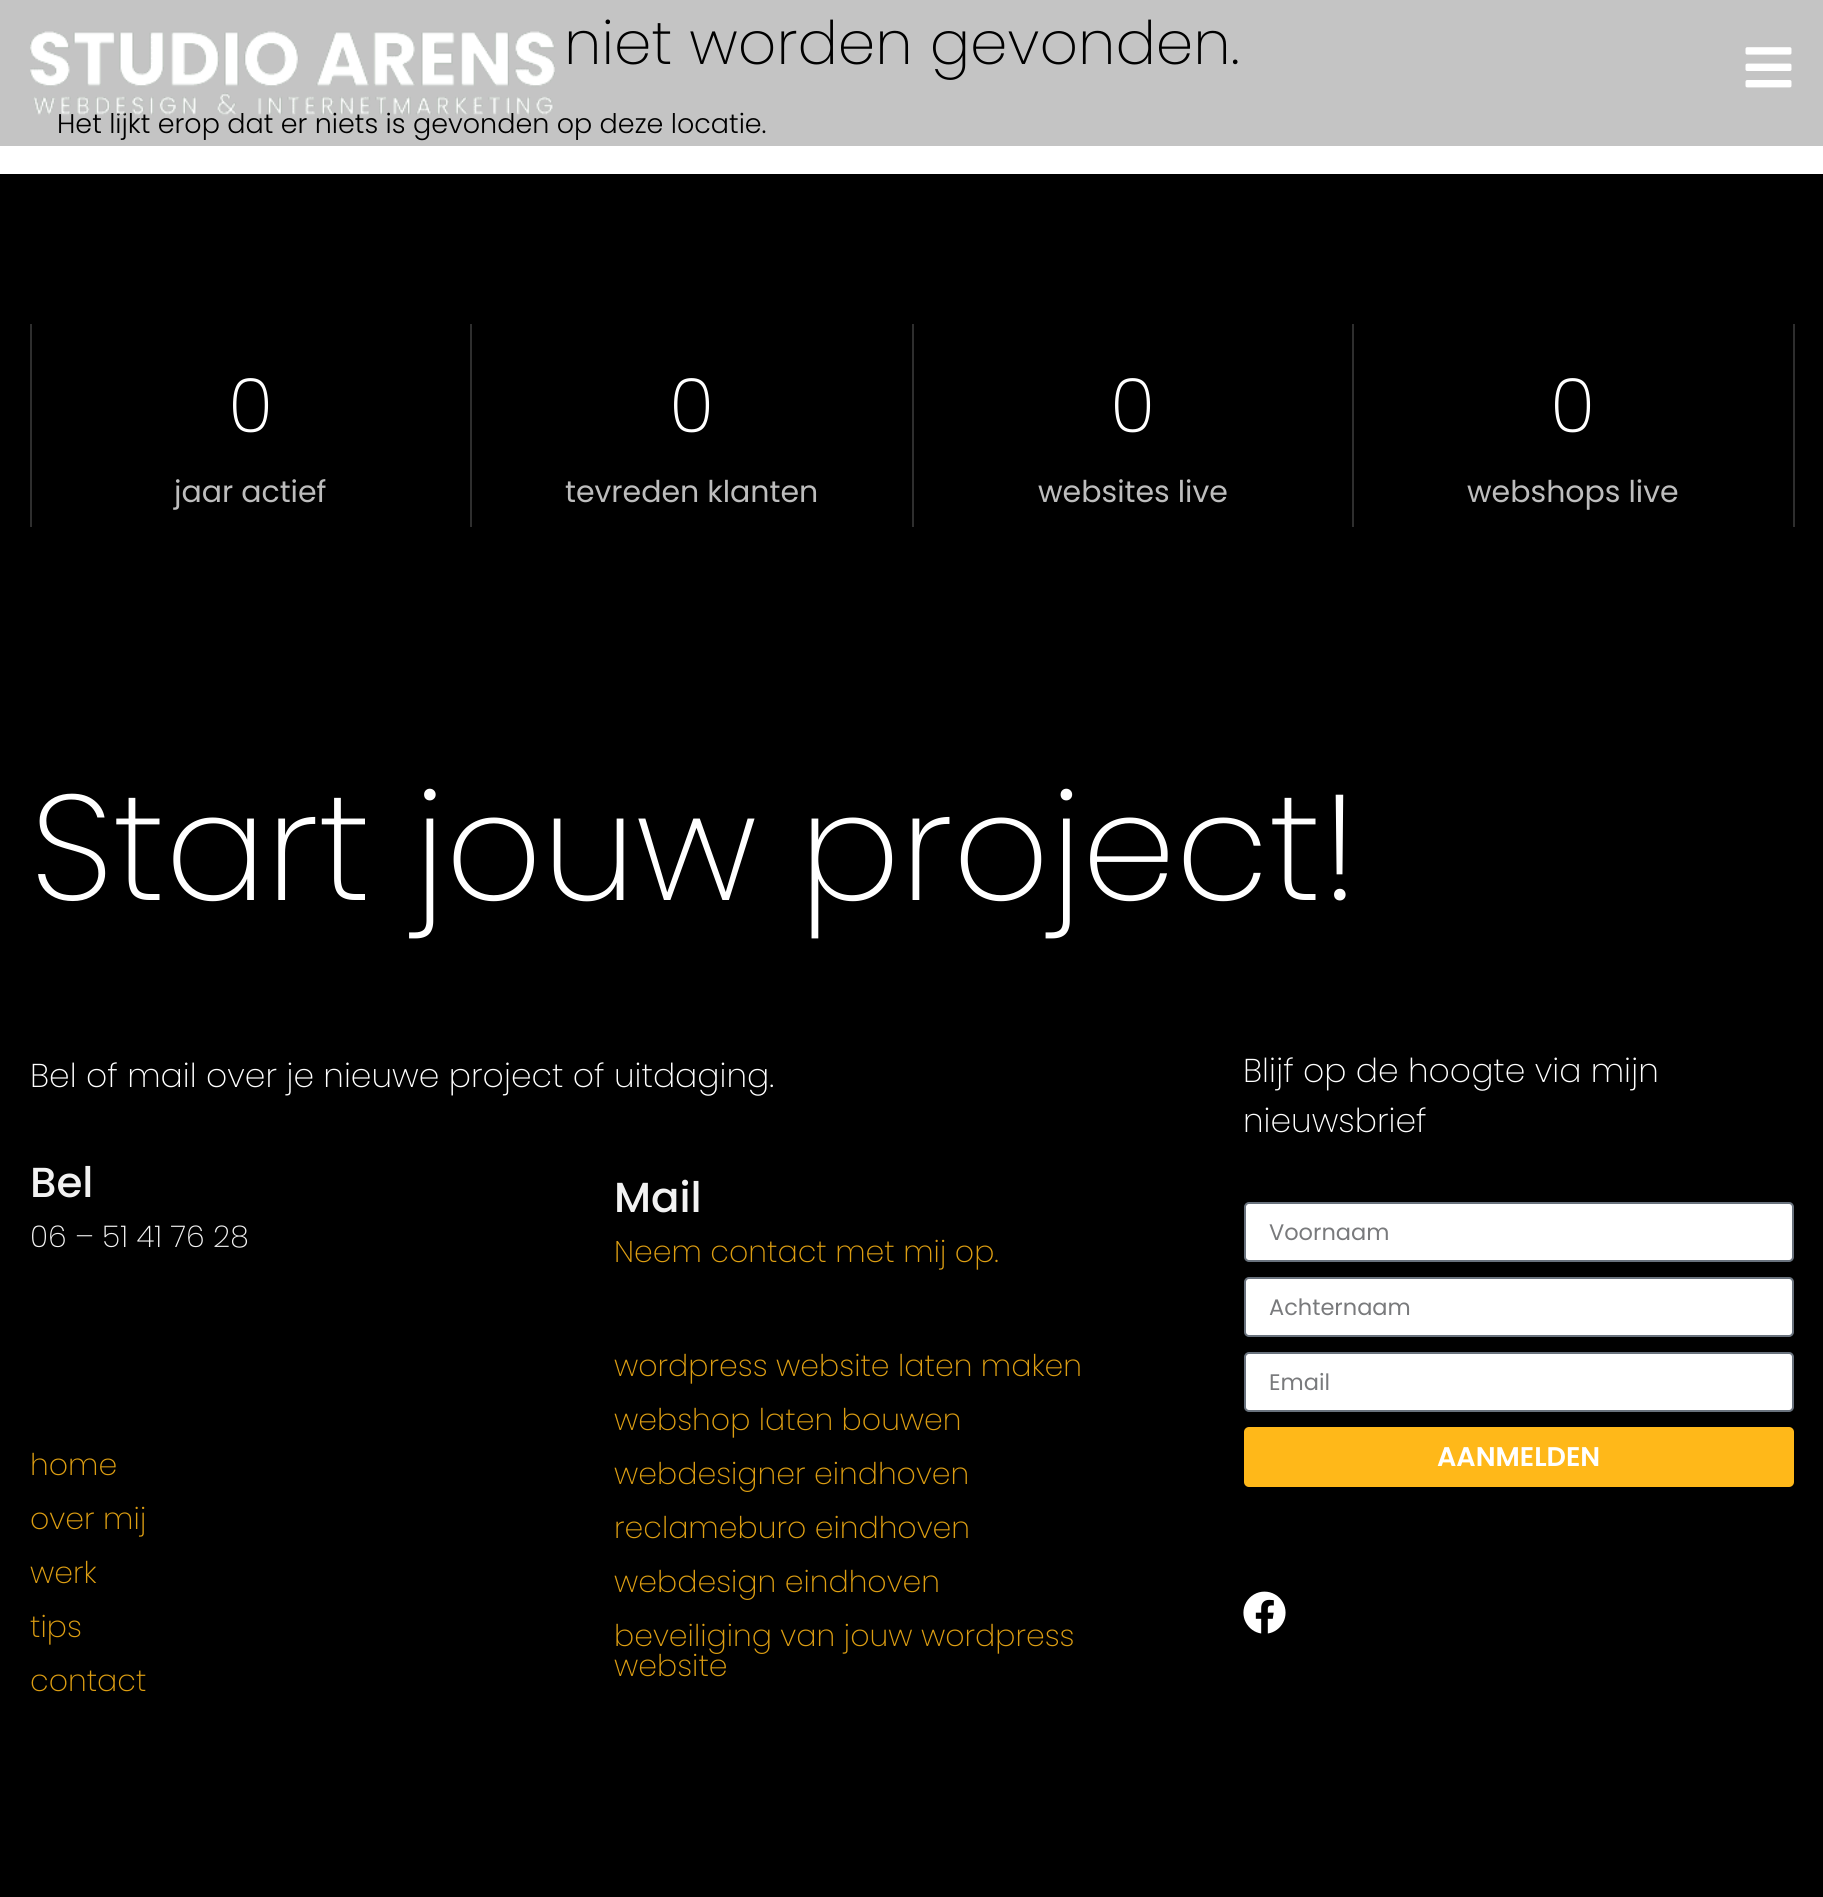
#include <cairo.h>
#include <math.h>
#include <stddef.h>

static cairo_t *c;
static void C(unsigned color){cairo_set_source_rgb(c, (color >> 16) / 255.0, (color >> 8 & 255) / 255.0, (color & 255) / 255.0);}
static void F(const char *family, double size, int italic, int bold){cairo_select_font_face(c, family, italic ? CAIRO_FONT_SLANT_ITALIC : CAIRO_FONT_SLANT_NORMAL,bold ? CAIRO_FONT_WEIGHT_BOLD : CAIRO_FONT_WEIGHT_NORMAL);cairo_set_font_size(c, size);}
static void T(double x, double y, const char *s){cairo_move_to(c, x, y);cairo_show_text(c, s);}
static void R(double x, double y, double w, double h){cairo_rectangle(c, x, y, w, h);cairo_fill(c);}
static void Q(double x, double y, double w, double h, double r){cairo_new_sub_path(c);cairo_arc(c, x + w - r, y + h - r, r, 0, M_PI / 2);cairo_arc(c, x + r, y + h - r, r, M_PI / 2, M_PI);cairo_arc(c, x + r, y + r, r, M_PI, 1.5 * M_PI);cairo_arc(c, x + w - r, y + r, r, 1.5 * M_PI, 2 * M_PI);cairo_close_path(c);}
static void I(const char *path, double x, double y, double w, double h){cairo_surface_t *image = cairo_image_surface_create_from_png(path);cairo_save(c);cairo_set_source_surface(c, image, x, y);cairo_rectangle(c, x, y, w, h);cairo_fill(c);cairo_restore(c);cairo_surface_destroy(image);}
int main(void) {
cairo_surface_t *surface = cairo_image_surface_create(CAIRO_FORMAT_RGB24, 1823, 1897);
c = cairo_create(surface);
cairo_font_options_t *options = cairo_font_options_create();
cairo_font_options_set_hint_metrics(options, CAIRO_HINT_METRICS_OFF);
cairo_font_options_set_hint_style(options, CAIRO_HINT_STYLE_NONE);
cairo_set_font_options(c, options);
cairo_set_miter_limit(c, 4);
C(0xffffff);
cairo_paint(c);
C(0xc4c4c4);
R(0,0,1823,146);
F("Poppins ExtraLight",60,0,0);
C(0x000000);
T(564,64,"niet worden gevonden.");
F("Poppins Light",27,0,0);
T(57,133,"Het lijkt erop dat er niets is gevonden op deze locatie.");
I("1.png",30,31,525,85);
I("2.png",1745,47,47,41);
R(0,174,1823,1723);
C(0x2e2e2e);
R(470,324,2,203);
R(30,324,2,203);
F("Poppins ExtraLight",75,0,0);
C(0xffffff);
T(228,432,"0");
F("Poppins",30,0,0);
C(0xbdbdbd);
T(174,502,"jaar actief");
F("Poppins ExtraLight",75,0,0);
C(0xffffff);
T(669,432,"0");
F("Poppins",30,0,0);
C(0xbdbdbd);
T(565,502,"tevreden klanten");
C(0x2e2e2e);
R(1352,324,2,203);
R(912,324,2,203);
F("Poppins ExtraLight",75,0,0);
C(0xffffff);
T(1110,432,"0");
F("Poppins",30,0,0);
C(0xbdbdbd);
T(1038,502,"websites live");
C(0x2e2e2e);
R(1793,324,2,203);
F("Poppins ExtraLight",75,0,0);
C(0xffffff);
T(1550,432,"0");
F("Poppins",30,0,0);
C(0xbdbdbd);
T(1467,502,"webshops live");
F("Poppins ExtraLight",150,0,0);
C(0xffffff);
T(30,900,"Start jouw project!");
F("Poppins ExtraLight",33,0,0);
T(30,1087,"Bel of mail over je nieuwe project of uitdaging.");
F("Poppins Medium",42,0,0);
C(0xf2f2f2);
T(30,1197,"Bel");
F("Poppins ExtraLight",30,0,0);
T(30,1247,"06 – 51 41 76 28");
F("Poppins Medium",42,0,0);
T(614,1212,"Mail");
F("Poppins ExtraLight",30,0,0);
C(0xdd9e12);
T(614,1262,"Neem contact met mij op.");
T(30,1475,"home");
T(30,1529,"over mij");
T(30,1583,"werk");
T(30,1637,"tips");
T(30,1691,"contact");
T(614,1376,"wordpress website laten maken");
T(614,1430,"webshop laten bouwen");
T(614,1484,"webdesigner eindhoven");
T(614,1538,"reclameburo eindhoven");
T(614,1592,"webdesign eindhoven");
T(614,1646,"beveiliging van jouw wordpress");
T(614,1676,"website");
F("Poppins ExtraLight",33,0,0);
C(0xffffff);
T(1243,1082,"Blijf op de hoogte via mijn");
T(1243,1132,"nieuwsbrief");
Q(1245,1203,548,58,4);
cairo_fill_preserve(c);
C(0x69727d);
cairo_stroke(c);
F("Poppins",22.5,0,0);
C(0x797a7c);
T(1269,1240,"Voornaam");
C(0xffffff);
Q(1245,1278,548,58,4);
cairo_fill_preserve(c);
C(0x69727d);
cairo_stroke(c);
C(0x797a7c);
T(1269,1315,"Achternaam");
C(0xffffff);
Q(1245,1353,548,58,4);
cairo_fill_preserve(c);
C(0x69727d);
cairo_stroke(c);
C(0x797a7c);
T(1269,1390,"Email");
C(0xffb819);
Q(1244,1427,550,60,5);
cairo_fill(c);
F("Poppins SemiBold",27,0,0);
C(0xffffff);
T(1437,1466,"AANMELDEN");
I("3.png",1243,1591,43,43);
cairo_surface_write_to_png(surface, "o.png");
cairo_font_options_destroy(options);
cairo_destroy(c);
cairo_surface_destroy(surface);
return 0;
}
